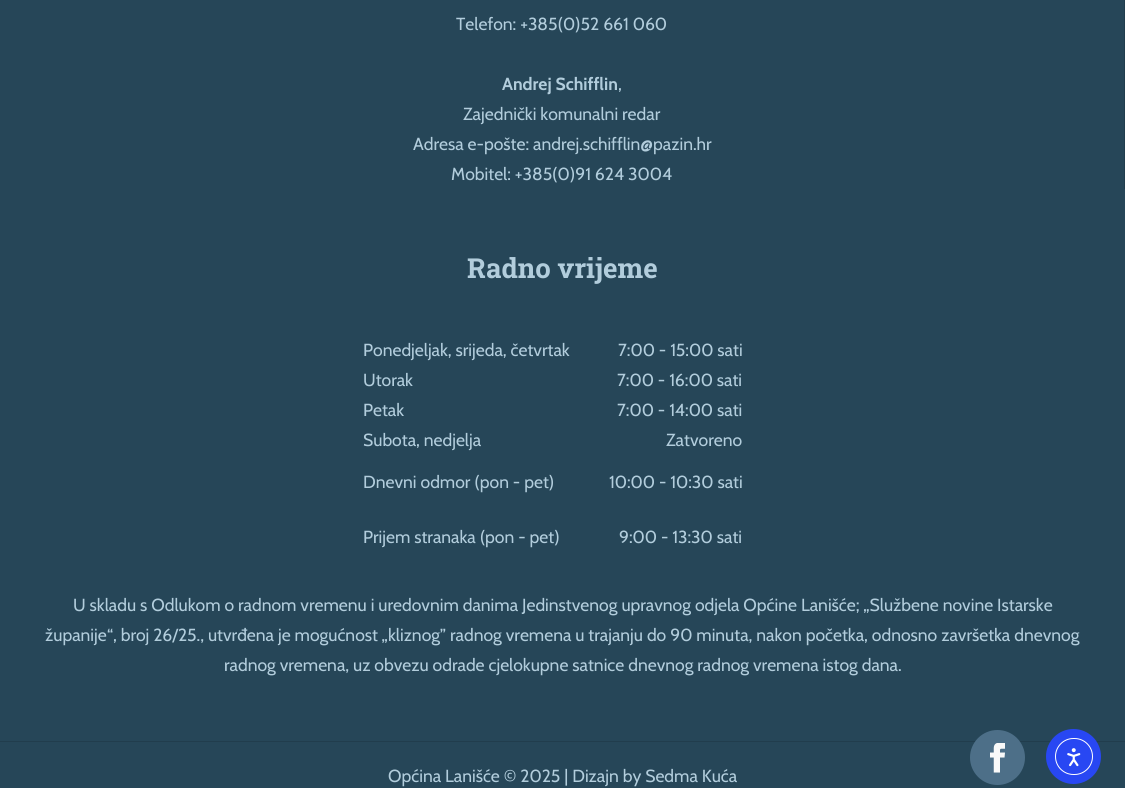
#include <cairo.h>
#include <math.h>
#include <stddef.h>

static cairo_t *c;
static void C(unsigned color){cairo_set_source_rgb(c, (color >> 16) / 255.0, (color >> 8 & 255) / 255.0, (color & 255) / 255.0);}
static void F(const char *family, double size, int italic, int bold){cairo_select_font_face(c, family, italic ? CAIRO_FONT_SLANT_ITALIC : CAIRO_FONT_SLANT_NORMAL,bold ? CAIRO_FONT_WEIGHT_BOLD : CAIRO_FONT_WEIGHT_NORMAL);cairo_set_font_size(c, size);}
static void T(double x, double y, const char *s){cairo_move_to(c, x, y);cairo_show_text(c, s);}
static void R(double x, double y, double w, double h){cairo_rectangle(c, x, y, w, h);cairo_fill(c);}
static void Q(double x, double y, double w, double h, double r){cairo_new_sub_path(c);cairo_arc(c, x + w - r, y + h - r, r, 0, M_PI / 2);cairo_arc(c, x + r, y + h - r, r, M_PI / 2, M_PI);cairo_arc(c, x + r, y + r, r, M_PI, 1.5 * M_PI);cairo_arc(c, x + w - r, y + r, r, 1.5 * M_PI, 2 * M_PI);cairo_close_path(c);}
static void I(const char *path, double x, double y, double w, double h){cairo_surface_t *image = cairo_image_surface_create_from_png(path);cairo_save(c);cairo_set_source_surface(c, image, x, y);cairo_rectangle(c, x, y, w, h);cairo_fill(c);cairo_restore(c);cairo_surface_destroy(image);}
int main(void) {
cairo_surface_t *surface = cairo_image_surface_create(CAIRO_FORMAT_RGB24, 1125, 788);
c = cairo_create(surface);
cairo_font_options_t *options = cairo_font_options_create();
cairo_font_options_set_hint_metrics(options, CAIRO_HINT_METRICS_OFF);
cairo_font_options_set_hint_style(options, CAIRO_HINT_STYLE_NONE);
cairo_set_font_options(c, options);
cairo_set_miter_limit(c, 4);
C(0x264658);
cairo_paint(c);
C(0x213d4d);
R(1124,0,1,189);
F("Cabin",17.5,0,0);
C(0xb2cddc);
T(456,30,"Telefon: +385(0)52 661 060");
F("Cabin",17.5,0,1);
T(502,90,"Andrej Schifflin");
F("Cabin",17.5,0,0);
T(618,90,",");
T(463,120,"Zajednički komunalni redar");
T(413,150,"Adresa e-pošte: andrej.schifflin@pazin.hr");
T(451,180,"Mobitel: +385(0)91 624 3004");
F("Roboto Slab",27.5,0,1);
T(467,278,"Radno vrijeme");
F("Cabin",17.5,0,0);
T(363,356,"Ponedjeljak, srijeda, četvrtak");
T(618,356,"7:00 - 15:00 sati");
T(363,386,"Utorak");
T(617,386,"7:00 - 16:00 sati");
T(363,416,"Petak");
T(617,416,"7:00 - 14:00 sati");
T(363,446,"Subota, nedjelja");
T(666,446,"Zatvoreno");
T(363,488,"Dnevni odmor (pon - pet)");
T(609,488,"10:00 - 10:30 sati");
T(363,543,"Prijem stranaka (pon - pet)");
T(619,543,"9:00 - 13:30 sati");
T(73,611,"U skladu s Odlukom o radnom vremenu i uredovnim danima Jedinstvenog upravnog odjela Općine Lanišće; „Službene novine Istarske");
T(45,641,"županije“, broj 26/25., utvrđena je mogućnost „kliznog” radnog vremena u trajanju do 90 minuta, nakon početka, odnosno završetka dnevnog");
T(224,671,"radnog vremena, uz obvezu odrade cjelokupne satnice dnevnog radnog vremena istog dana.");
C(0x213d4d);
R(0,741,1125,1);
C(0xb2cddc);
T(388,782,"Općina Lanišće © 2025 | Dizajn by Sedma Kuća");
C(0x4d6f88);
cairo_new_path(c);
cairo_arc(c,997.5,757.5,27.5,0,2 * M_PI);
cairo_fill(c);
I("1.png",990,743,15,30);
C(0x2847f3);
cairo_arc(c,1073.5,756.5,27.5,0,2 * M_PI);
cairo_fill(c);
Q(1055.5,738.5,37,36,18);
C(0xffffff);
cairo_set_line_width(c,1);
cairo_stroke(c);
I("2.png",1067,748,14,19);
cairo_surface_write_to_png(surface, "o.png");
cairo_font_options_destroy(options);
cairo_destroy(c);
cairo_surface_destroy(surface);
return 0;
}
